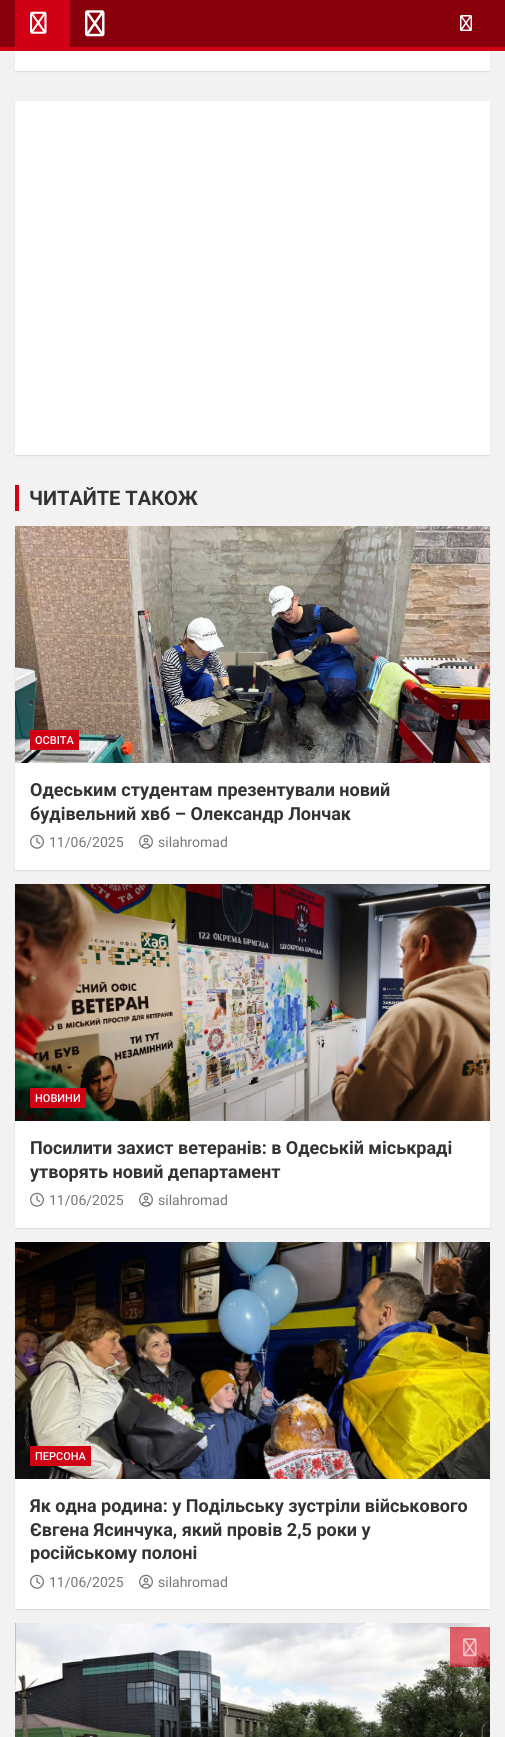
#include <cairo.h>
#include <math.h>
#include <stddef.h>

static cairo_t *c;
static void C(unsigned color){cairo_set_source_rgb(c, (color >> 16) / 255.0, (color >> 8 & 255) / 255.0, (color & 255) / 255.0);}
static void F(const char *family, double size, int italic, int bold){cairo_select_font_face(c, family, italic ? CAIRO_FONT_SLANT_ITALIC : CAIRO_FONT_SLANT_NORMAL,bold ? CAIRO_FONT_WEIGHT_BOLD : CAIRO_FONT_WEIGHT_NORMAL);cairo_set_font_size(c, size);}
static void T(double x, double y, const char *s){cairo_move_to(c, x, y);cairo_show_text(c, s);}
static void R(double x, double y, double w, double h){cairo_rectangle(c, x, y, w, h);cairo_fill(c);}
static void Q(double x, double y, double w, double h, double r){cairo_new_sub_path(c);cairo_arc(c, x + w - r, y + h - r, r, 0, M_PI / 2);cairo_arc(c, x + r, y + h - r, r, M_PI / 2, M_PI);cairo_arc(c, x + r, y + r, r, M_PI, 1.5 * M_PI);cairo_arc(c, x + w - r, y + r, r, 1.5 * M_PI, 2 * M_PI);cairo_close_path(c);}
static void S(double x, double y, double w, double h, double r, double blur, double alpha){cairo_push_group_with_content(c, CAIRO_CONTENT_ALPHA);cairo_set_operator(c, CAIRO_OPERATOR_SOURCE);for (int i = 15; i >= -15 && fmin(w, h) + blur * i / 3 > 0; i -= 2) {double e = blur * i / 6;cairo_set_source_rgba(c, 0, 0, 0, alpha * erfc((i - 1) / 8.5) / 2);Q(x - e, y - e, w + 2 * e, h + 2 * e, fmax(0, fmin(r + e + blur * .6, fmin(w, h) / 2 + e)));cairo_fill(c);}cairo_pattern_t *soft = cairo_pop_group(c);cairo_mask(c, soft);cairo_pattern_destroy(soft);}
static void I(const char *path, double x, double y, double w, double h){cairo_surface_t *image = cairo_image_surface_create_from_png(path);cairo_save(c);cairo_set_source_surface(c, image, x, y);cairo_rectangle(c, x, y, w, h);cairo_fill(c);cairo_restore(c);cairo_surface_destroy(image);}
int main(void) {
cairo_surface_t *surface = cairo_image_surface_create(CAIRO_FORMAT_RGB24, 505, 1737);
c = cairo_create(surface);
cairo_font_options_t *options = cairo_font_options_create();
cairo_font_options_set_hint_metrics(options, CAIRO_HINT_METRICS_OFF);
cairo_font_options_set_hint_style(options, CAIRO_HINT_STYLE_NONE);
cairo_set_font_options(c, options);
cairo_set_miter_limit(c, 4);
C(0xf2f2f2);
cairo_paint(c);
C(0x000000);
S(15,-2,475,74,0,.5,.1);
C(0x89000d);
R(0,0,505,47);
C(0xd10014);
R(15,0,55,47);
I("1.png",30,11,17,23);
I("2.png",85,10,20,27);
I("3.png",460,15,12,16);
R(0,47,505,4);
C(0xffffff);
R(15,51,475,20);
C(0x000000);
S(15,102,475,354,0,.5,.1);
C(0xffffff);
R(15,101,475,354);
C(0xd10014);
R(15,485,4,26);
F("Roboto",20,0,1);
C(0x333333);
T(29,505,"ЧИТАЙТЕ ТАКОЖ");
C(0x000000);
S(15,527,475,344,0,.5,.1);
C(0xffffff);
R(15,763,475,107);
I("4.png",15,526,475,237);
C(0xd10014);
R(30,730,49,20);
F("Roboto Medium",11,0,0);
C(0xffffff);
T(35,744,"ОСВІТА");
F("Roboto",18,0,1);
C(0x333333);
T(30,796,"Одеським студентам презентували новий");
T(30,820,"будівельний хвб – Олександр Лончак");
I("5.png",30,834,14,15);
F("Roboto",14,0,0);
C(0x777777);
T(49,847,"11/06/2025");
I("6.png",139,834,14,15);
T(158,847,"silahromad");
C(0x000000);
S(15,885,475,344,0,.5,.1);
C(0xffffff);
R(15,1121,475,107);
I("7.png",15,884,475,237);
C(0xd10014);
R(30,1088,56,20);
F("Roboto Medium",11,0,0);
C(0xffffff);
T(35,1102,"НОВИНИ");
F("Roboto",18,0,1);
C(0x333333);
T(30,1154,"Посилити захист ветеранів: в Одеській міськраді");
T(30,1178,"утворять новий департамент");
I("5.png",30,1192,14,15);
F("Roboto",14,0,0);
C(0x777777);
T(49,1205,"11/06/2025");
I("6.png",139,1192,14,15);
T(158,1205,"silahromad");
C(0x000000);
S(15,1243,475,367,0,.5,.1);
C(0xffffff);
R(15,1479,475,130);
I("8.png",15,1242,475,237);
C(0xd10014);
R(30,1446,61,20);
F("Roboto Medium",11,0,0);
C(0xffffff);
T(35,1460,"ПЕРСОНА");
F("Roboto",18,0,1);
C(0x333333);
T(30,1512,"Як одна родина: у Подільську зустріли військового");
T(30,1536,"Євгена Ясинчука, який провів 2,5 роки у");
T(30,1559,"російському полоні");
I("5.png",30,1574,14,15);
F("Roboto",14,0,0);
C(0x777777);
T(49,1587,"11/06/2025");
I("6.png",139,1574,14,15);
T(158,1587,"silahromad");
I("9.png",15,1623,475,114);
cairo_set_source_rgba(c,0.82,0,0.078,0.6);
R(450,1627,40,40);
I("10.png",463,1638,14,19);
cairo_surface_write_to_png(surface, "o.png");
cairo_font_options_destroy(options);
cairo_destroy(c);
cairo_surface_destroy(surface);
return 0;
}
